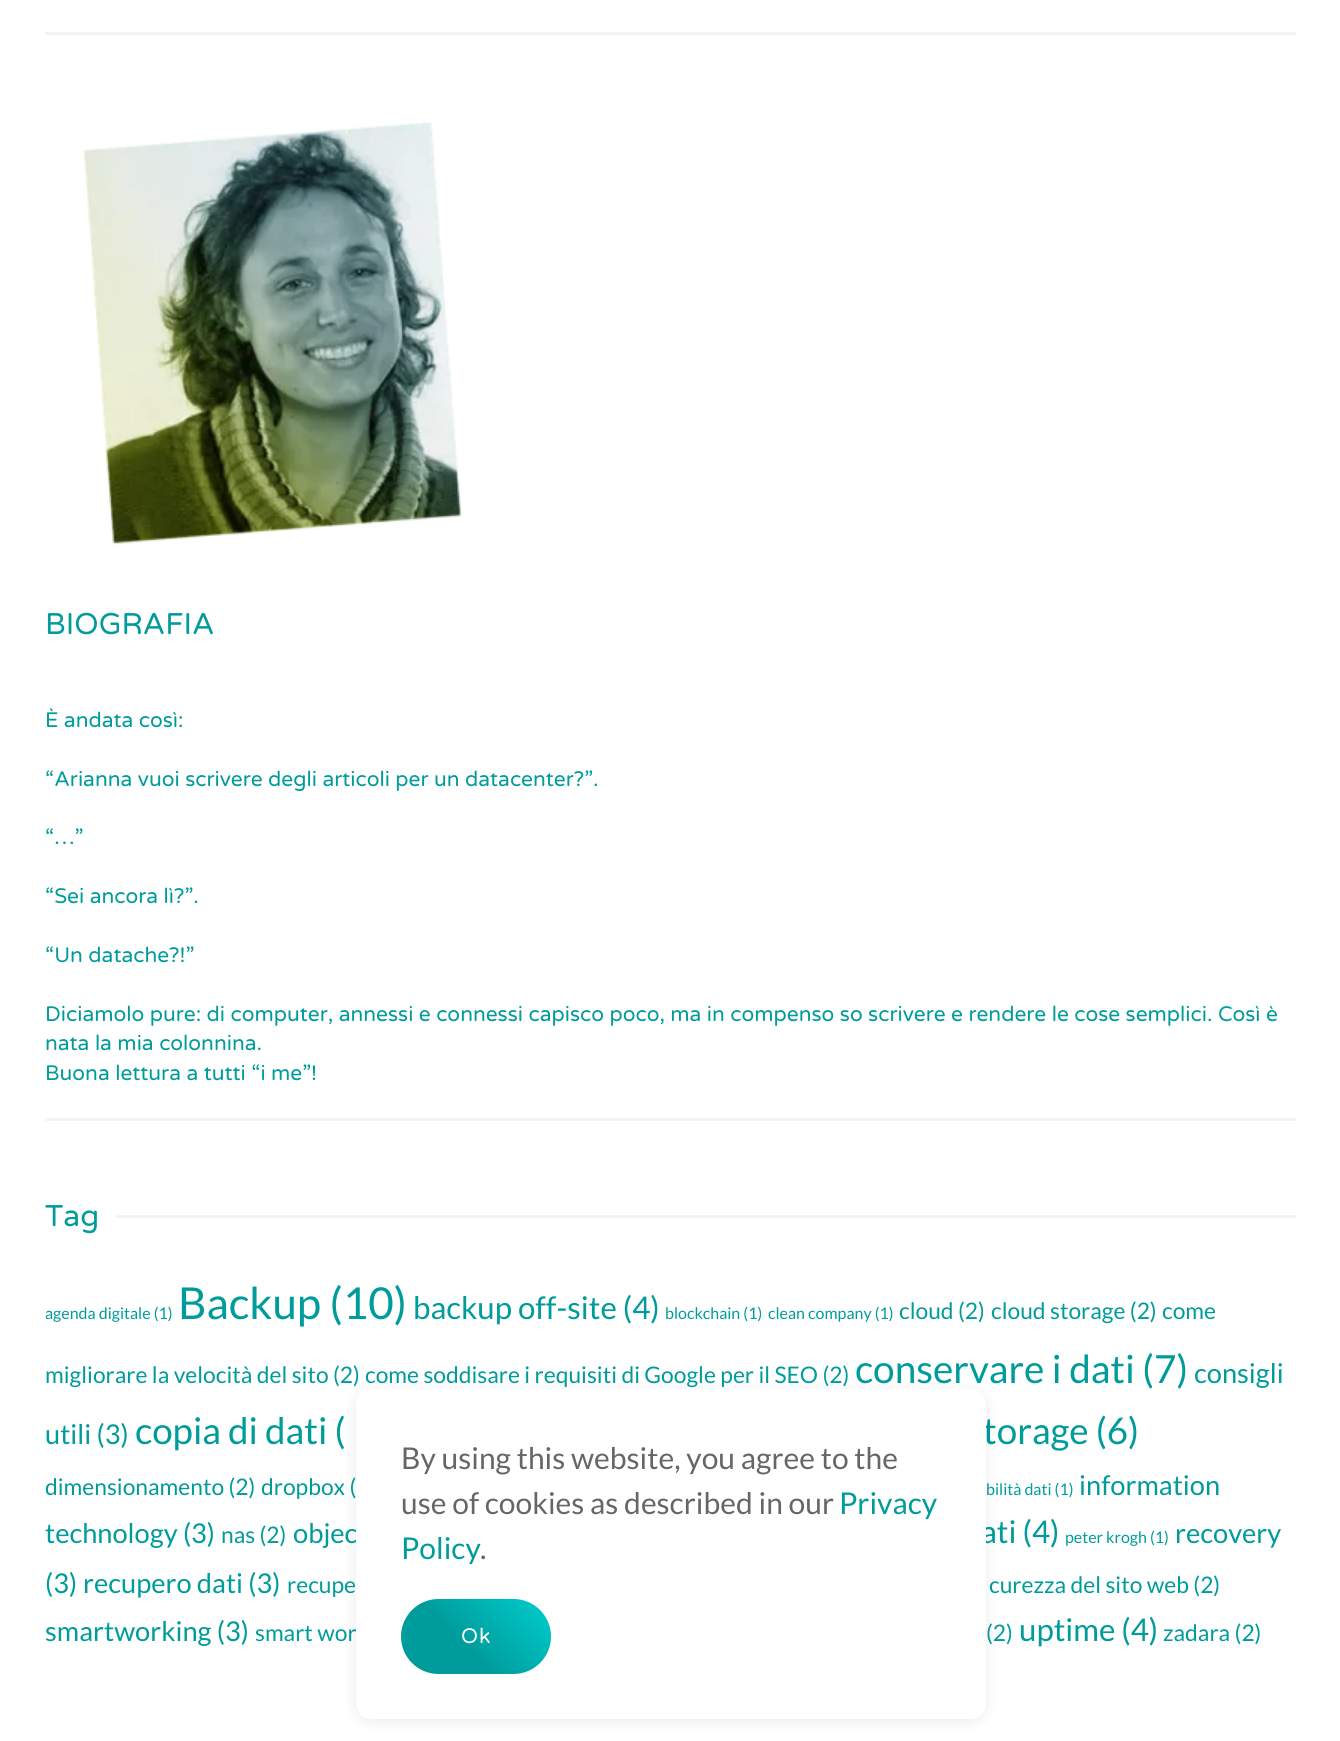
#include <cairo.h>
#include <math.h>
#include <stddef.h>

static cairo_t *c;
static void C(unsigned color){cairo_set_source_rgb(c, (color >> 16) / 255.0, (color >> 8 & 255) / 255.0, (color & 255) / 255.0);}
static void F(const char *family, double size, int italic, int bold){cairo_select_font_face(c, family, italic ? CAIRO_FONT_SLANT_ITALIC : CAIRO_FONT_SLANT_NORMAL,bold ? CAIRO_FONT_WEIGHT_BOLD : CAIRO_FONT_WEIGHT_NORMAL);cairo_set_font_size(c, size);}
static void T(double x, double y, const char *s){cairo_move_to(c, x, y);cairo_show_text(c, s);}
static void L(double x, double y, const char *s, double letter, double word){cairo_move_to(c, x, y);while (*s) {char ch[5] = {0};int n = 0;do ch[n++] = *s++; while ((*s & 0xC0) == 0x80);cairo_show_text(c, ch);cairo_rel_move_to(c, letter + word * (*ch == ' '), 0);}}
static void R(double x, double y, double w, double h){cairo_rectangle(c, x, y, w, h);cairo_fill(c);}
static void Q(double x, double y, double w, double h, double r){cairo_new_sub_path(c);cairo_arc(c, x + w - r, y + h - r, r, 0, M_PI / 2);cairo_arc(c, x + r, y + h - r, r, M_PI / 2, M_PI);cairo_arc(c, x + r, y + r, r, M_PI, 1.5 * M_PI);cairo_arc(c, x + w - r, y + r, r, 1.5 * M_PI, 2 * M_PI);cairo_close_path(c);}
static void S(double x, double y, double w, double h, double r, double blur, double alpha){cairo_push_group_with_content(c, CAIRO_CONTENT_ALPHA);cairo_set_operator(c, CAIRO_OPERATOR_SOURCE);for (int i = 15; i >= -15 && fmin(w, h) + blur * i / 3 > 0; i -= 2) {double e = blur * i / 6;cairo_set_source_rgba(c, 0, 0, 0, alpha * erfc((i - 1) / 8.5) / 2);Q(x - e, y - e, w + 2 * e, h + 2 * e, fmax(0, fmin(r + e + blur * .6, fmin(w, h) / 2 + e)));cairo_fill(c);}cairo_pattern_t *soft = cairo_pop_group(c);cairo_mask(c, soft);cairo_pattern_destroy(soft);}
static void I(const char *path, double x, double y, double w, double h){cairo_surface_t *image = cairo_image_surface_create_from_png(path);cairo_save(c);cairo_set_source_surface(c, image, x, y);cairo_rectangle(c, x, y, w, h);cairo_fill(c);cairo_restore(c);cairo_surface_destroy(image);}
int main(void) {
cairo_surface_t *surface = cairo_image_surface_create(CAIRO_FORMAT_RGB24, 1340, 1741);
c = cairo_create(surface);
cairo_font_options_t *options = cairo_font_options_create();
cairo_font_options_set_hint_metrics(options, CAIRO_HINT_METRICS_OFF);
cairo_font_options_set_hint_style(options, CAIRO_HINT_STYLE_NONE);
cairo_set_font_options(c, options);
cairo_set_miter_limit(c, 4);
cairo_pattern_t *gradient;
C(0xffffff);
cairo_paint(c);
C(0xf4f4f4);
R(45,32,1251,3);
I("1.png",83,122,379,423);
F("Varela Round",30,0,0);
C(0x009b9b);
T(45,634,"BIOGRAFIA");
F("Varela Round",21,0,0);
T(45,727,"È andata così:");
T(45,786,"“Arianna vuoi scrivere degli articoli per un datacenter?”.");
T(45,844,"“…”");
T(45,903,"“Sei ancora lì?”.");
T(45,962,"“Un datache?!”");
T(45,1021,"Diciamolo pure: di computer, annessi e connessi capisco poco, ma in compenso so scrivere e rendere le cose semplici. Così è");
T(45,1050,"nata la mia colonnina.");
T(45,1080,"Buona lettura a tutti “i me”!");
C(0xf4f4f4);
R(45,1118,1251,3);
F("Varela Round",30,0,0);
C(0x009b9b);
T(45,1226,"Tag");
C(0xf4f4f4);
R(116,1215,1180,3);
F("Lato",16,0,0);
C(0x009b9b);
T(45,1319,"agenda digitale (1)");
F("Lato",44,0,0);
T(178,1319,"Backup (10)");
F("Lato",31.25,0,0);
T(413,1319,"backup off-site (4)");
F("Lato",16,0,0);
T(665,1319,"blockchain (1)");
T(768,1319,"clean company (1)");
F("Lato",22.8,0,0);
T(899,1319,"cloud (2)");
T(991,1319,"cloud storage (2)");
T(1162,1319,"come");
T(45,1383,"migliorare la velocità del sito");
T(333,1383,"(2)");
T(365,1383,"come soddisare i requisiti di Google per il SEO (2)");
F("Lato",38.75,0,0);
T(855,1383,"conservare i dati (7)");
F("Lato",27.25,0,0);
T(1194,1383,"consigli");
T(45,1444,"utili (3)");
F("Lato",36.75,0,0);
T(135,1444,"copia di dati (");
T(983,1444,"torage (6)");
F("Lato",22.8,0,0);
T(45,1495,"dimensionamento (2)");
T(261,1495,"dropbox (");
F("Lato",16,0,0);
T(986,1495,"bilità dati (1)");
F("Lato",27.25,0,0);
T(1079,1495,"information");
T(45,1543,"technology (3)");
F("Lato",22.8,0,0);
T(221,1543,"nas (2)");
F("Lato",27.25,0,0);
T(293,1543,"objec");
F("Lato",31.25,0,0);
T(981,1543,"ati (4)");
F("Lato",16,0,0);
T(1065,1543,"peter krogh (1)");
F("Lato",27.25,0,0);
T(1175,1543,"recovery");
T(45,1593,"(3)");
T(83,1593,"recupero dati (3)");
F("Lato",22.8,0,0);
T(287,1593,"recupe");
T(989,1593,"curezza del sito web (2)");
F("Lato",27.25,0,0);
T(45,1641,"smartworking (3)");
F("Lato",22.8,0,0);
T(255,1641,"smart wor");
T(986,1641,"(2)");
F("Lato",31.25,0,0);
T(1019,1641,"uptime (4)");
F("Lato",22.8,0,0);
T(1163,1641,"zadara (2)");
C(0x000000);
S(356,1391,630,330,15,7.5,.08);
C(0xffffff);
Q(356,1389,630,330,15);
cairo_fill(c);
F("Lato",30,0,0);
C(0x666666);
T(401,1469,"By using this website, you agree to the");
T(401,1514,"use of cookies as described in our");
C(0x009b9b);
T(839,1514,"Privacy");
T(401,1559,"Policy");
C(0x666666);
T(480,1559,".");
gradient = cairo_pattern_create_linear(419,1693,532,1580);
cairo_pattern_add_color_stop_rgba(gradient,.4,0,0.608,0.608,1);
cairo_pattern_add_color_stop_rgba(gradient,1,0,0.808,0.808,1);
cairo_set_source(c,gradient);
cairo_pattern_destroy(gradient);
Q(401,1599,150,75,37.5);
cairo_fill(c);
F("Varela Round",21,0,0);
C(0xffffff);
L(461,1643,"Ok",1,0);
cairo_surface_write_to_png(surface, "o.png");
cairo_font_options_destroy(options);
cairo_destroy(c);
cairo_surface_destroy(surface);
return 0;
}
